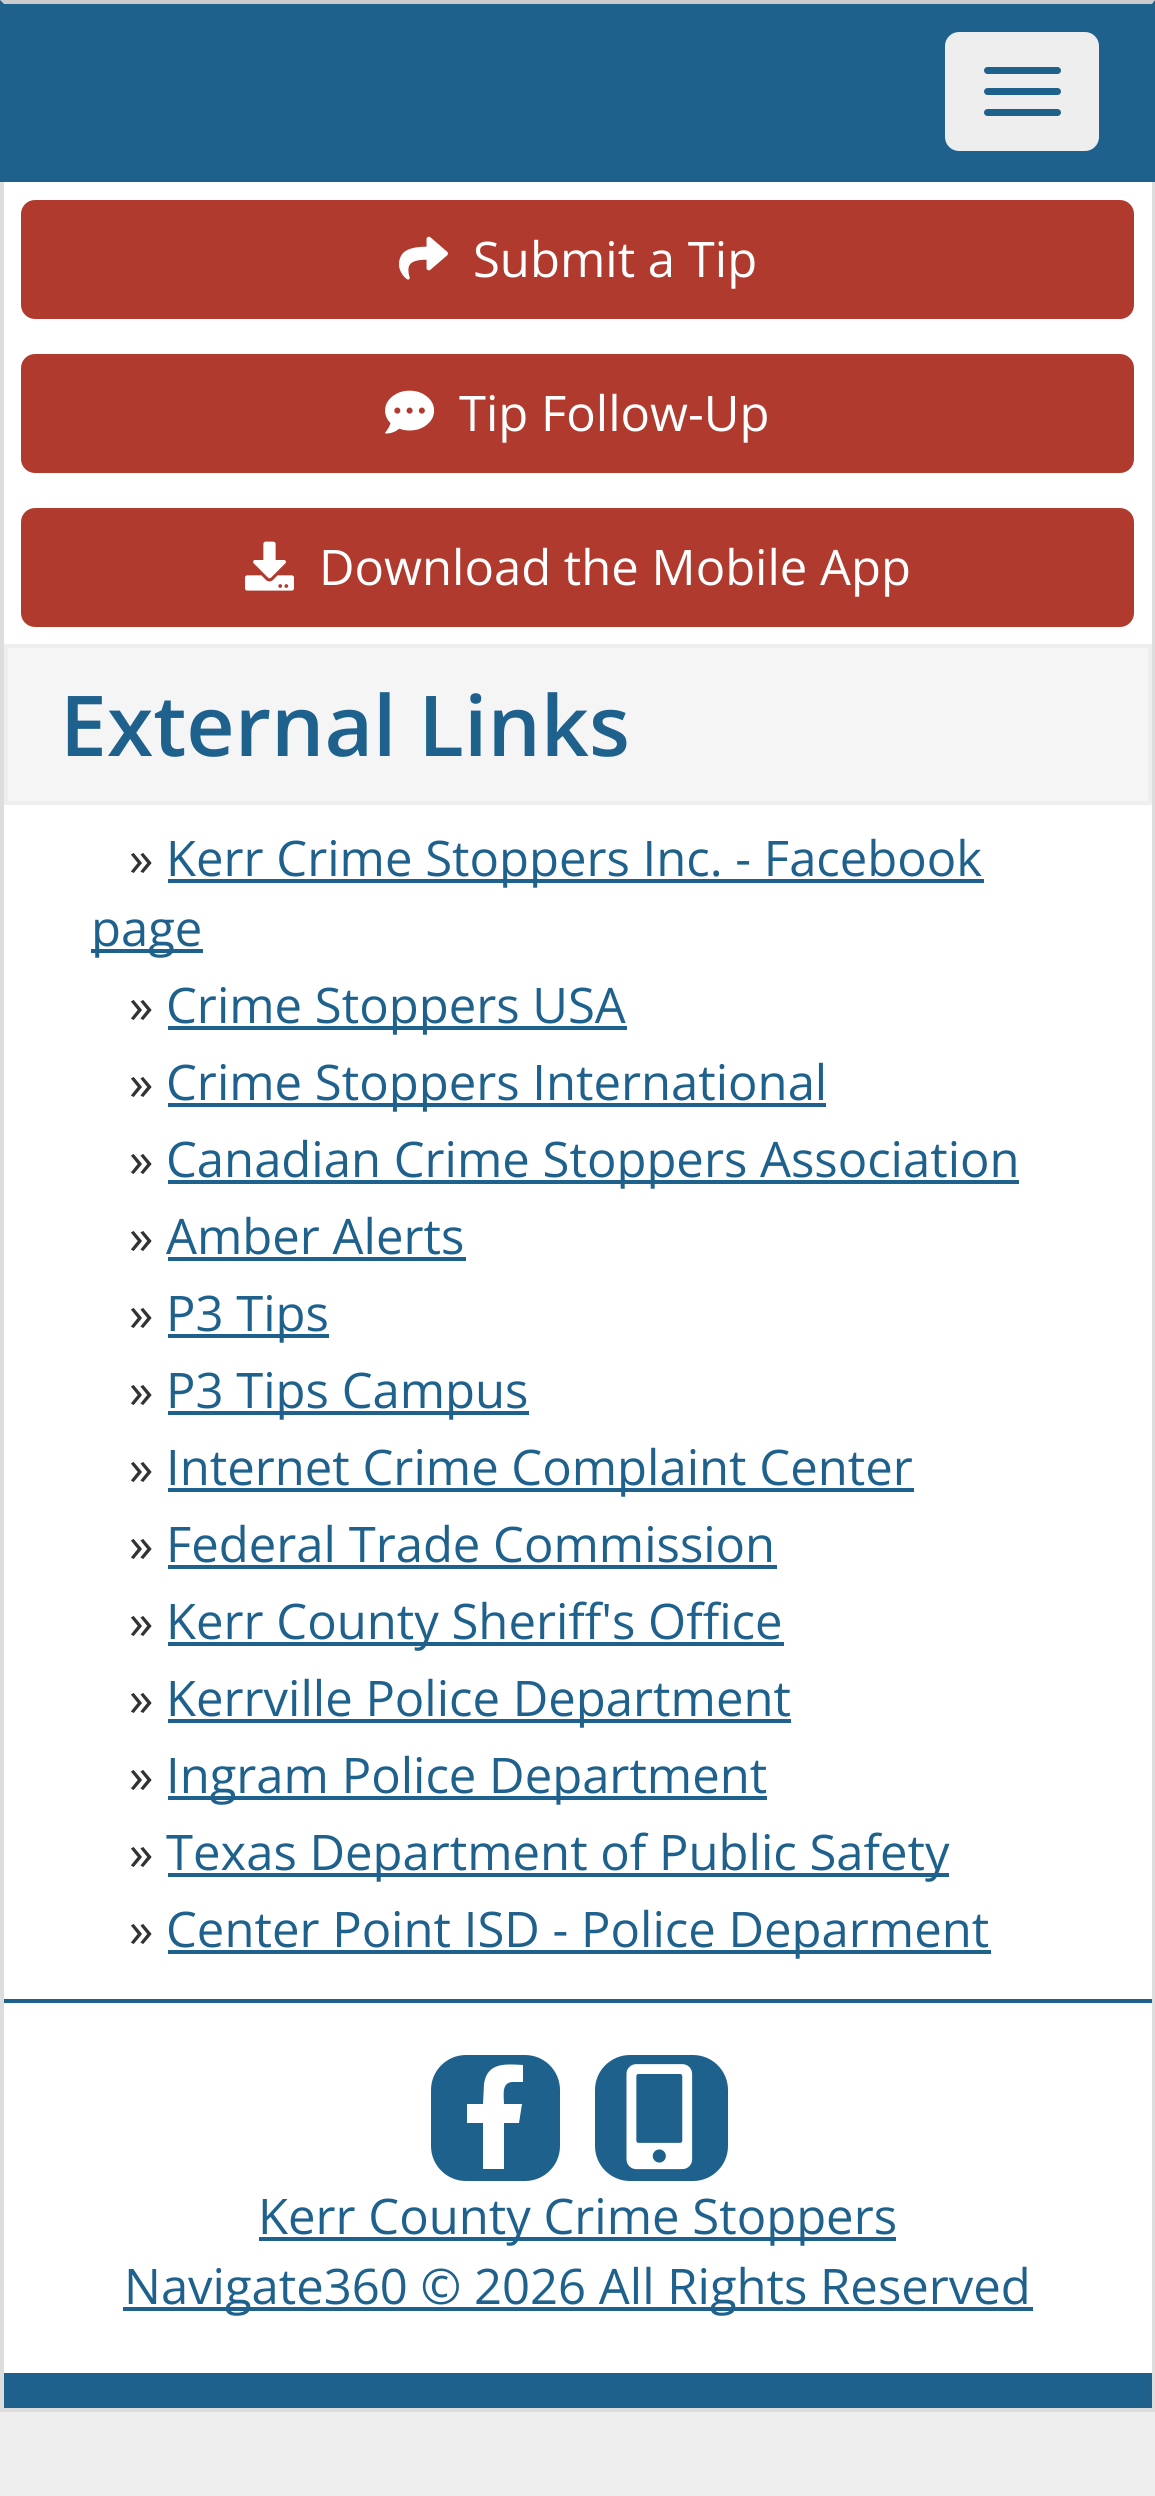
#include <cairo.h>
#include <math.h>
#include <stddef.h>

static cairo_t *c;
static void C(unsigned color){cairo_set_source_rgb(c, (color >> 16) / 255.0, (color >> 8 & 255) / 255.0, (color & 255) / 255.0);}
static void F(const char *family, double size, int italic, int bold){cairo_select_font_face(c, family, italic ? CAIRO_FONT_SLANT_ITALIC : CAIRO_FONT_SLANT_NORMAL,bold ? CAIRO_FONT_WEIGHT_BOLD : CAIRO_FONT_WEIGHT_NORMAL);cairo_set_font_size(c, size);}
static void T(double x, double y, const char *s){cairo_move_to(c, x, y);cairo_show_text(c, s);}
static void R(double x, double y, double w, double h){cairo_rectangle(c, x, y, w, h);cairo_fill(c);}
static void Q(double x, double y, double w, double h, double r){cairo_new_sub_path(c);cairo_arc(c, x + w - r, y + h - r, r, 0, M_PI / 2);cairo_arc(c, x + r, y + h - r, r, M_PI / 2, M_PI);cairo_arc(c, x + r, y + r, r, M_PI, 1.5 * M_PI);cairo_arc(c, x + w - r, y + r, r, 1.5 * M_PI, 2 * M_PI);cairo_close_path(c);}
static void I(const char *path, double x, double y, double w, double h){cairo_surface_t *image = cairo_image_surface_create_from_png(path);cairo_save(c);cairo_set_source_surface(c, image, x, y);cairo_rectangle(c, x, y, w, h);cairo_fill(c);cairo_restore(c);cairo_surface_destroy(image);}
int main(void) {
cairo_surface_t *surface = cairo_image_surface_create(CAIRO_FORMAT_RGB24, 1155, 2496);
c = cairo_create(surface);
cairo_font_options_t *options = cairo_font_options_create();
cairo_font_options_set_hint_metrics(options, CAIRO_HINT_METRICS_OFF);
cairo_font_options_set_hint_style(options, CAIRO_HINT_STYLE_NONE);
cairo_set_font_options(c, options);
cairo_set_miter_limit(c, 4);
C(0xeeeeee);
cairo_paint(c);
C(0x1f618d);
R(0,0,1155,182);
C(0xcccccc);
cairo_new_path(c);
cairo_move_to(c,0,0);
cairo_line_to(c,1155,0);
cairo_line_to(c,1152,4);
cairo_line_to(c,4,4);
cairo_close_path(c);
cairo_fill(c);
C(0xeeeeee);
Q(945,32,154,119,14);
cairo_fill(c);
C(0x1f618d);
Q(984,67,77,7,3.5);
cairo_fill(c);
Q(984,88,77,7,3.5);
cairo_fill(c);
Q(984,109,77,7,3.5);
cairo_fill(c);
C(0xffffff);
R(4,182,1148,462);
C(0xdddddd);
R(1152,182,3,2230);
R(0,182,4,462);
C(0xb03a2e);
Q(23,202,1109,115,12);
cairo_fill_preserve(c);
cairo_set_line_width(c,4);
cairo_stroke(c);
I("1.png",399,236,49,44);
F("Open Sans",49,0,0);
C(0xffffff);
T(473,277,"Submit a Tip");
C(0xb03a2e);
Q(23,356,1109,115,12);
cairo_fill_preserve(c);
cairo_stroke(c);
I("2.png",385,390,50,44);
C(0xffffff);
T(459,431,"Tip Follow-Up");
C(0xb03a2e);
Q(23,510,1109,115,12);
cairo_fill_preserve(c);
cairo_stroke(c);
I("3.png",245,541,49,50);
C(0xffffff);
T(319,585,"Download the Mobile App");
R(4,805,1148,1568);
C(0xdddddd);
R(0,2408,1155,4);
R(0,644,4,1768);
C(0xf5f5f5);
R(8,648,1140,153);
F("Open Sans SemiBold",84,0,0);
C(0x1f618d);
T(60,756,"External Links");
F("Open Sans",49,0,0);
C(0x333333);
T(129,876,"»");
C(0x1f618d);
R(168,879,816,4);
T(166,876,"Kerr Crime Stoppers Inc. - Facebook");
R(91,949,112,4);
T(91,946,"page");
C(0x333333);
T(129,1023,"»");
C(0x1f618d);
R(168,1026,459,4);
T(166,1023,"Crime Stoppers USA");
C(0x333333);
T(129,1100,"»");
C(0x1f618d);
R(168,1103,658,4);
T(166,1100,"Crime Stoppers International");
C(0x333333);
T(129,1177,"»");
C(0x1f618d);
R(168,1180,851,4);
T(166,1177,"Canadian Crime Stoppers Association");
C(0x333333);
T(129,1254,"»");
C(0x1f618d);
T(166,1254,"Amber Alerts");
R(168,1257,298,4);
C(0x333333);
T(129,1331,"»");
C(0x1f618d);
R(168,1334,161,4);
T(166,1331,"P3 Tips");
C(0x333333);
T(129,1408,"»");
C(0x1f618d);
R(168,1411,361,4);
T(166,1408,"P3 Tips Campus");
C(0x333333);
T(129,1485,"»");
C(0x1f618d);
R(168,1488,746,4);
T(166,1485,"Internet Crime Complaint Center");
C(0x333333);
T(129,1562,"»");
C(0x1f618d);
T(166,1562,"Federal Trade Commission");
R(168,1565,609,4);
C(0x333333);
T(129,1639,"»");
C(0x1f618d);
R(168,1642,616,4);
T(166,1639,"Kerr County Sheriff's Office");
C(0x333333);
T(129,1716,"»");
C(0x1f618d);
R(168,1719,623,4);
T(166,1716,"Kerrville Police Department");
C(0x333333);
T(129,1793,"»");
C(0x1f618d);
R(168,1796,599,4);
T(166,1793,"Ingram Police Department");
C(0x333333);
T(129,1870,"»");
C(0x1f618d);
R(168,1873,781,4);
T(166,1870,"Texas Department of Public Safety");
C(0x333333);
T(129,1947,"»");
C(0x1f618d);
R(168,1950,823,4);
T(166,1947,"Center Point ISD - Police Deparment");
R(4,1999,1148,4);
R(4,2373,1148,35);
Q(431,2055,129,126,35);
cairo_fill(c);
C(0xffffff);
cairo_new_path(c);
cairo_move_to(c,519,2123);
cairo_line_to(c,504,2123);
cairo_line_to(c,504,2169);
cairo_line_to(c,483,2169);
cairo_line_to(c,483,2123);
cairo_line_to(c,467,2123);
cairo_line_to(c,467,2104);
cairo_line_to(c,483,2104);
cairo_line_to(c,484,2084);
cairo_curve_to(c,487,2062,506,2064,523,2065);
cairo_line_to(c,523,2082);
cairo_line_to(c,512,2082);
cairo_curve_to(c,501,2083,504,2096,504,2104);
cairo_line_to(c,522,2104);
cairo_close_path(c);
cairo_fill(c);
C(0x1f618d);
Q(595,2055,133,126,35);
cairo_fill(c);
I("4.png",626,2064,67,106);
R(259,2237,637,4);
T(258,2234,"Kerr County Crime Stoppers");
R(123,2307,910,4);
T(124,2304,"Navigate360 © 2026 All Rights Reserved");
cairo_surface_write_to_png(surface, "o.png");
cairo_font_options_destroy(options);
cairo_destroy(c);
cairo_surface_destroy(surface);
return 0;
}
